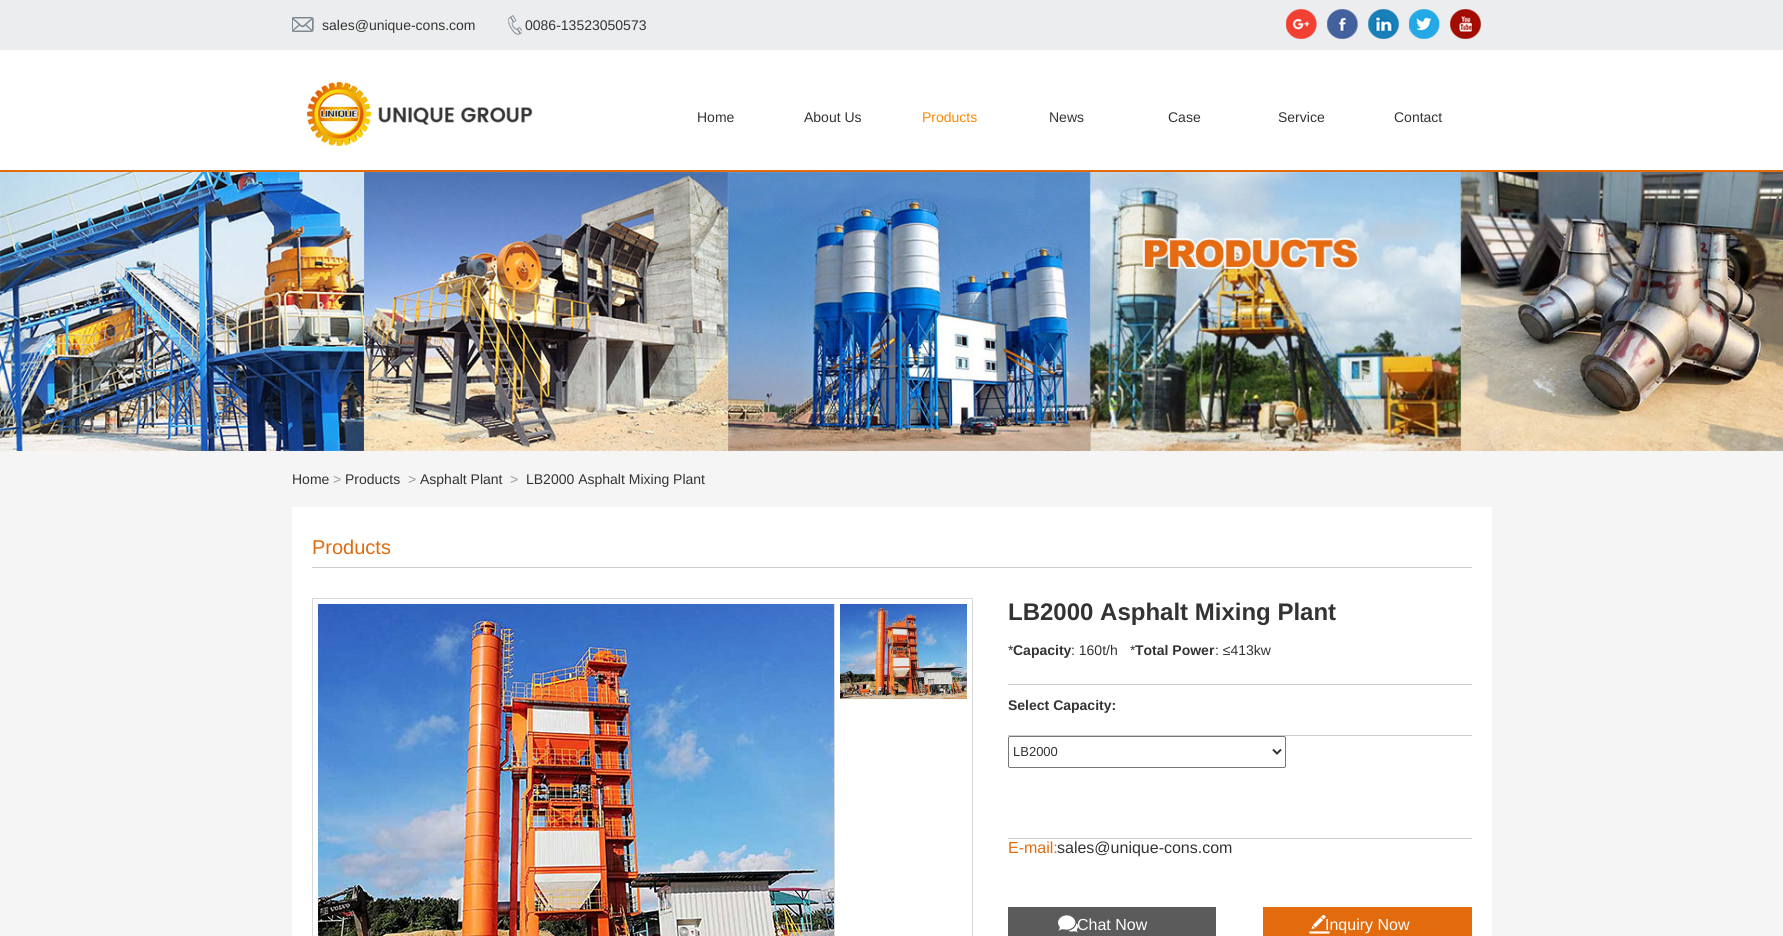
#include <cairo.h>
#include <math.h>
#include <stddef.h>

static cairo_t *c;
static void C(unsigned color){cairo_set_source_rgb(c, (color >> 16) / 255.0, (color >> 8 & 255) / 255.0, (color & 255) / 255.0);}
static void F(const char *family, double size, int italic, int bold){cairo_select_font_face(c, family, italic ? CAIRO_FONT_SLANT_ITALIC : CAIRO_FONT_SLANT_NORMAL,bold ? CAIRO_FONT_WEIGHT_BOLD : CAIRO_FONT_WEIGHT_NORMAL);cairo_set_font_size(c, size);}
static void T(double x, double y, const char *s){cairo_move_to(c, x, y);cairo_show_text(c, s);}
static void R(double x, double y, double w, double h){cairo_rectangle(c, x, y, w, h);cairo_fill(c);}
static void Q(double x, double y, double w, double h, double r){cairo_new_sub_path(c);cairo_arc(c, x + w - r, y + h - r, r, 0, M_PI / 2);cairo_arc(c, x + r, y + h - r, r, M_PI / 2, M_PI);cairo_arc(c, x + r, y + r, r, M_PI, 1.5 * M_PI);cairo_arc(c, x + w - r, y + r, r, 1.5 * M_PI, 2 * M_PI);cairo_close_path(c);}
static void I(const char *path, double x, double y, double w, double h){cairo_surface_t *image = cairo_image_surface_create_from_png(path);cairo_save(c);cairo_set_source_surface(c, image, x, y);cairo_rectangle(c, x, y, w, h);cairo_fill(c);cairo_restore(c);cairo_surface_destroy(image);}
int main(void) {
cairo_surface_t *surface = cairo_image_surface_create(CAIRO_FORMAT_RGB24, 1783, 936);
c = cairo_create(surface);
cairo_font_options_t *options = cairo_font_options_create();
cairo_font_options_set_hint_metrics(options, CAIRO_HINT_METRICS_OFF);
cairo_font_options_set_hint_style(options, CAIRO_HINT_STYLE_NONE);
cairo_set_font_options(c, options);
cairo_set_miter_limit(c, 4);
C(0xffffff);
cairo_paint(c);
C(0xecedee);
R(0,0,1783,50);
I("1.png",292,17,22,15);
F("Liberation Sans",14,0,0);
C(0x333333);
T(322,30,"sales@unique-cons.com");
I("2.png",508,15,14,20);
T(525,30,"0086-13523050573");
I("3.png",1286,9,31,30);
I("4.png",1327,9,31,30);
I("5.png",1368,9,31,30);
I("6.png",1409,9,31,30);
I("7.png",1450,9,31,30);
C(0xe26b0d);
R(0,170,1783,2);
I("8.png",307,82,226,64);
C(0x333333);
T(697,122,"Home");
T(804,122,"About Us");
C(0xfc8800);
T(922,122,"Products");
C(0x333333);
T(1049,122,"News");
T(1168,122,"Case");
T(1278,122,"Service");
T(1394,122,"Contact");
I("9.png",0,172,1783,279);
C(0xf5f5f5);
R(0,451,1783,485);
C(0x333333);
T(292,484,"Home");
C(0x999999);
T(333,484,">");
C(0x333333);
T(345,484,"Products");
C(0x999999);
T(408,484,">");
C(0x333333);
T(420,484,"Asphalt Plant");
C(0x999999);
T(510,484,">");
C(0x333333);
T(526,484,"LB2000 Asphalt Mixing Plant");
C(0xffffff);
R(292,507,1200,429);
C(0xcccccc);
R(312,567,1160,1);
F("Liberation Sans",20,0,0);
C(0xe26b0d);
T(312,554,"Products");
cairo_rectangle(c,312.5,598.5,660,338);
C(0xd9d9d9);
cairo_set_line_width(c,1);
cairo_stroke(c);
R(834,604,1,332);
I("10.png",318,604,516,332);
I("11.png",840,604,127,95);
F("Liberation Sans",24,0,1);
C(0x333333);
T(1008,620,"LB2000 Asphalt Mixing Plant");
C(0xcccccc);
R(1008,684,464,1);
F("Liberation Sans",14,0,0);
C(0x333333);
T(1008,655,"*");
F("Liberation Sans",14,0,1);
T(1013,655,"Capacity");
F("Liberation Sans",14,0,0);
T(1071,655,": 160t/h");
T(1130,655,"*");
F("Liberation Sans",14,0,1);
T(1135,655,"Total Power");
F("Liberation Sans",14,0,0);
T(1215,655,": ≤413kw");
C(0xcccccc);
R(1008,735,464,1);
F("Liberation Sans",14,0,1);
C(0x333333);
T(1008,710,"Select Capacity:");
Q(1008.5,736.5,277,31,1.5);
C(0x767676);
cairo_stroke(c);
cairo_new_path(c);
cairo_move_to(c,1273,749.5);
cairo_line_to(c,1277,753.5);
cairo_line_to(c,1281,749.5);
C(0x333333);
cairo_set_line_width(c,2);
cairo_stroke(c);
F("Liberation Sans",13,0,0);
T(1013,756,"LB2000");
C(0xcccccc);
R(1008,838,464,1);
F("Liberation Sans",16,0,0);
C(0xe26b0d);
T(1008,853,"E-mail:");
C(0x333333);
T(1057,853,"sales@unique-cons.com");
C(0x5b5b5b);
R(1008,907,208,29);
I("12.png",1058,915,20,18);
C(0xffffff);
T(1077,930,"Chat Now");
C(0xe26b0d);
R(1263,907,209,29);
I("13.png",1309,915,21,19);
C(0xffffff);
T(1325,930,"Inquiry Now");
cairo_surface_write_to_png(surface, "o.png");
cairo_font_options_destroy(options);
cairo_destroy(c);
cairo_surface_destroy(surface);
return 0;
}
